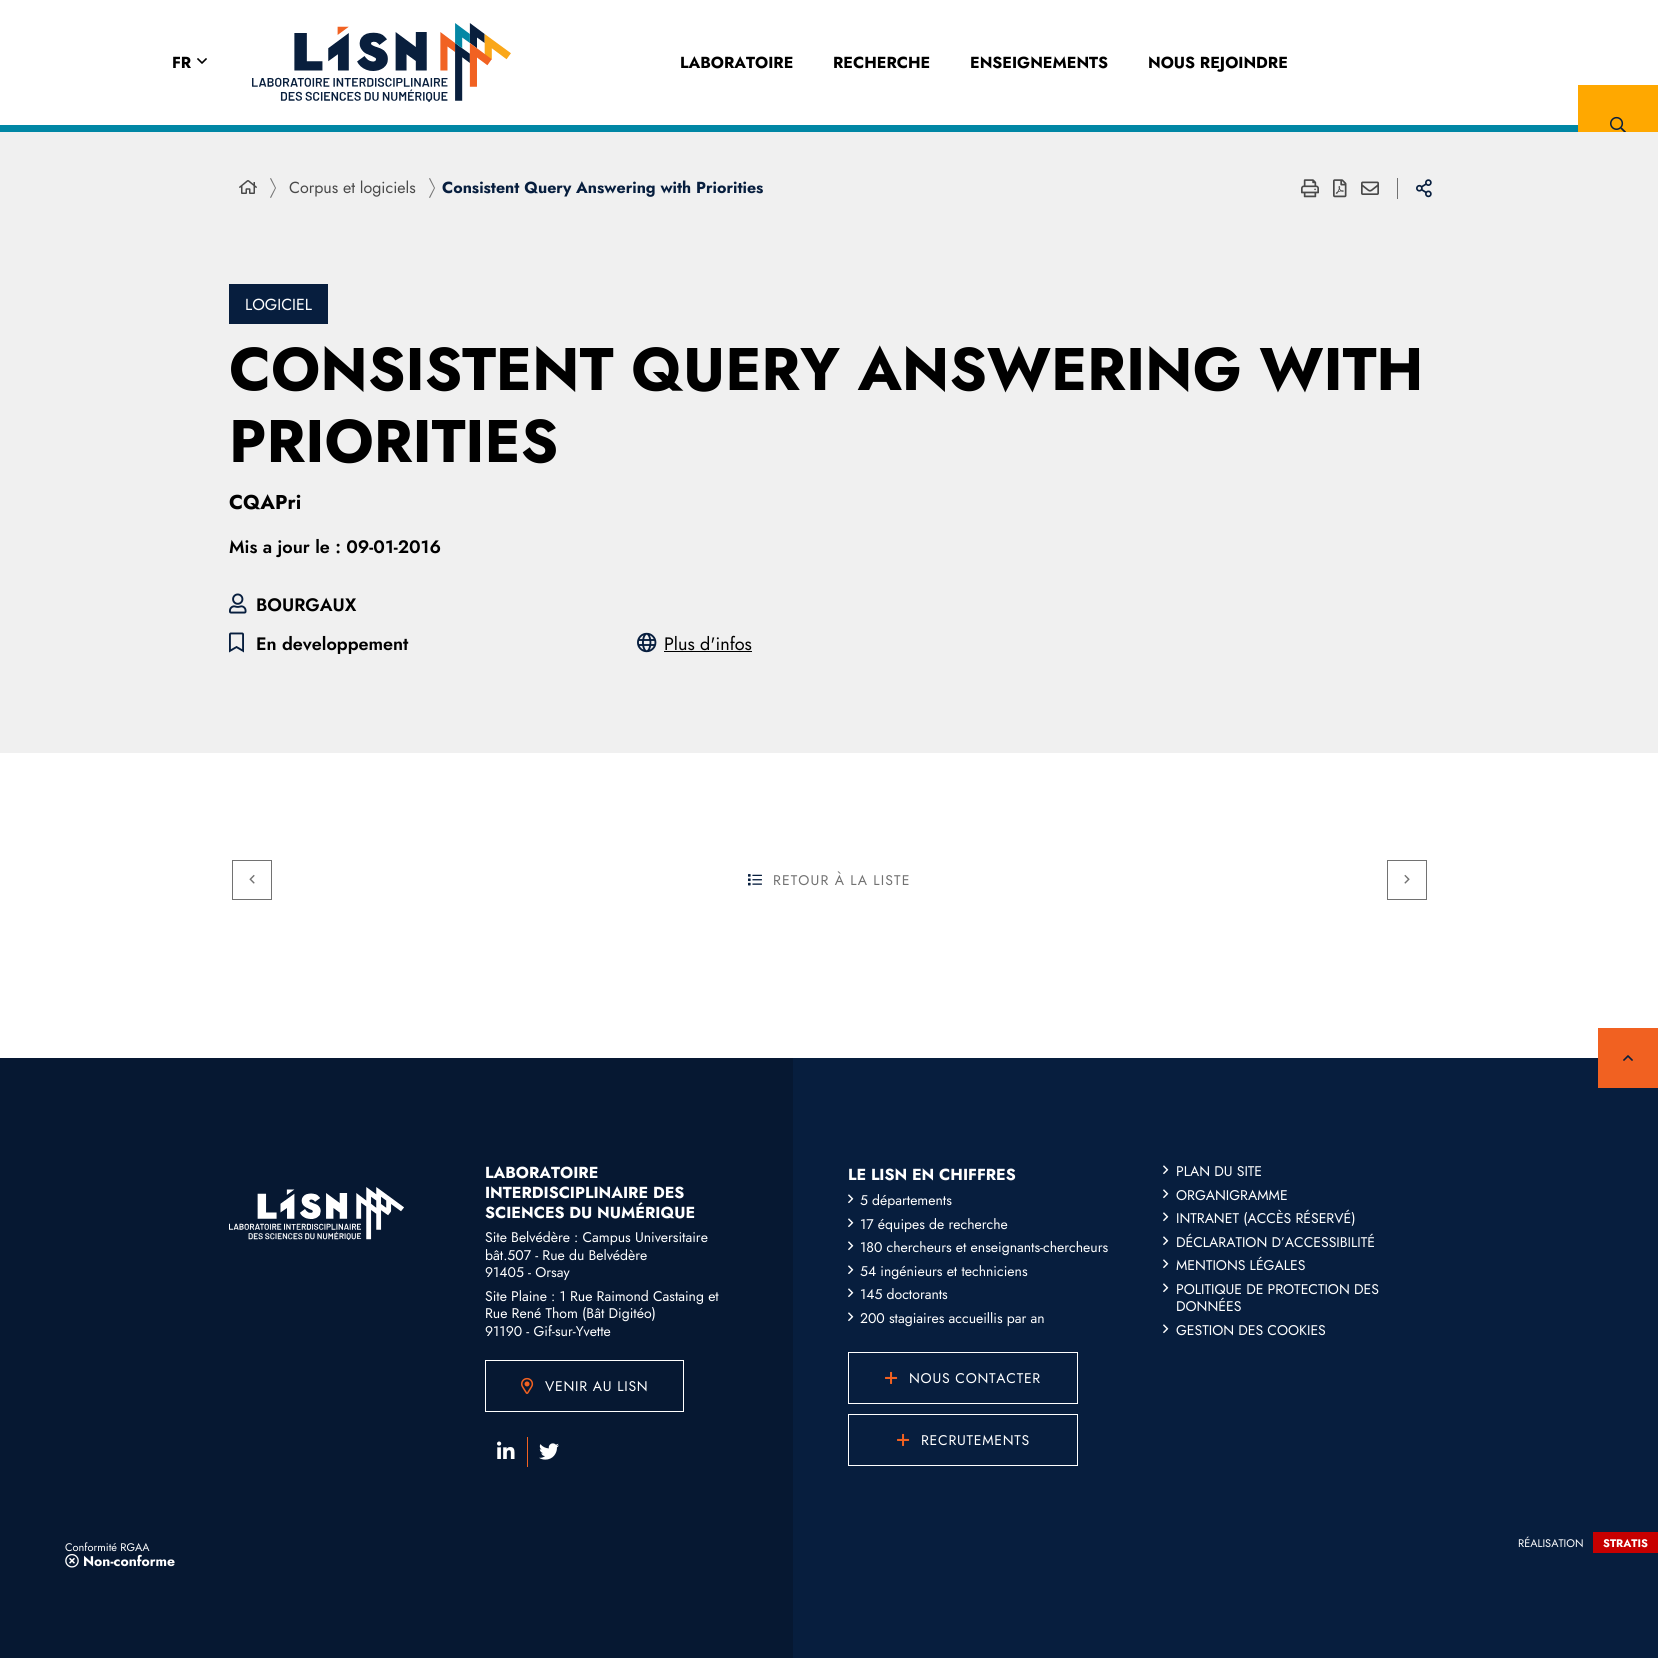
#include <cairo.h>
#include <math.h>
#include <stddef.h>

static cairo_t *c;
static void C(unsigned color){cairo_set_source_rgb(c, (color >> 16) / 255.0, (color >> 8 & 255) / 255.0, (color & 255) / 255.0);}
static void F(const char *family, double size, int italic, int bold){cairo_select_font_face(c, family, italic ? CAIRO_FONT_SLANT_ITALIC : CAIRO_FONT_SLANT_NORMAL,bold ? CAIRO_FONT_WEIGHT_BOLD : CAIRO_FONT_WEIGHT_NORMAL);cairo_set_font_size(c, size);}
static void T(double x, double y, const char *s){cairo_move_to(c, x, y);cairo_show_text(c, s);}
static void L(double x, double y, const char *s, double letter, double word){cairo_move_to(c, x, y);while (*s) {char ch[5] = {0};int n = 0;do ch[n++] = *s++; while ((*s & 0xC0) == 0x80);cairo_show_text(c, ch);cairo_rel_move_to(c, letter + word * (*ch == ' '), 0);}}
static void R(double x, double y, double w, double h){cairo_rectangle(c, x, y, w, h);cairo_fill(c);}
static void I(const char *path, double x, double y, double w, double h){cairo_surface_t *image = cairo_image_surface_create_from_png(path);cairo_save(c);cairo_set_source_surface(c, image, x, y);cairo_rectangle(c, x, y, w, h);cairo_fill(c);cairo_restore(c);cairo_surface_destroy(image);}
int main(void) {
cairo_surface_t *surface = cairo_image_surface_create(CAIRO_FORMAT_RGB24, 1658, 1658);
c = cairo_create(surface);
cairo_font_options_t *options = cairo_font_options_create();
cairo_font_options_set_hint_metrics(options, CAIRO_HINT_METRICS_OFF);
cairo_font_options_set_hint_style(options, CAIRO_HINT_STYLE_NONE);
cairo_set_font_options(c, options);
cairo_set_miter_limit(c, 4);
C(0xffffff);
cairo_paint(c);
C(0x0087a5);
R(0,125,1578,7);
F("Jost",16,0,1);
C(0x000000);
T(172,68,"FR");
I("1.png",197,58,10,6);
I("2.png",252,23,259,79);
T(680,68,"LABORATOIRE");
T(833,68,"RECHERCHE");
T(970,68,"ENSEIGNEMENTS");
T(1148,68,"NOUS REJOINDRE");
C(0xffa800);
R(1578,85,80,47);
I("3.png",1610,116,16,16);
C(0xf0f0f0);
R(0,132,1658,621);
I("4.png",239,180,18,14);
C(0x727272);
cairo_new_path(c);
cairo_move_to(c,271,198);
cairo_line_to(c,270,197.5);
cairo_line_to(c,275,188);
cairo_line_to(c,270,178.5);
cairo_line_to(c,271,178);
cairo_line_to(c,276,188);
cairo_close_path(c);
cairo_fill(c);
F("Jost",16,0,0);
C(0x494949);
T(289,193,"Corpus et logiciels");
C(0x727272);
cairo_new_path(c);
cairo_move_to(c,430,198);
cairo_line_to(c,429,197.5);
cairo_line_to(c,434,188);
cairo_line_to(c,429,178.5);
cairo_line_to(c,430,178);
cairo_line_to(c,435,188);
cairo_close_path(c);
cairo_fill(c);
F("Jost",16,0,1);
C(0x071e3e);
T(442,193,"Consistent Query Answering with Priorities");
I("5.png",1301,179,18,19);
I("6.png",1333,179,14,19);
I("7.png",1361,181,18,14);
C(0x727272);
R(1397,178,1,21);
I("8.png",1416,179,16,19);
C(0x071e3e);
R(229,284,99,40);
F("Jost",16,0,0);
C(0xffffff);
T(245,310,"LOGICIEL");
F("Jost",60,0,1);
C(0x000000);
T(229,390,"CONSISTENT QUERY ANSWERING WITH");
T(229,462,"PRIORITIES");
F("Jost",20,0,1);
T(229,509,"CQAPri");
F("Jost SemiBold",18,0,0);
T(229,553,"Mis a jour le : 09-01-2016");
I("9.png",229,593,18,21);
T(256,611,"BOURGAUX");
I("10.png",229,632,15,21);
T(256,650,"En developpement");
I("11.png",637,632,20,21);
F("Jost",18,0,0);
T(664,650,"Plus d'infos");
R(664,651,88,1);
cairo_rectangle(c,232.5,860.5,39,39);
C(0x727272);
cairo_set_line_width(c,1);
cairo_stroke(c);
I("12.png",249,874,6,10);
I("13.png",748,874,14,12);
F("Jost",14,0,0);
L(773,885,"RETOUR À LA LISTE",1.1,0);
cairo_rectangle(c,1387.5,860.5,39,39);
cairo_stroke(c);
I("14.png",1404,874,6,10);
C(0x071e3e);
R(793,1058,865,600);
C(0xf16121);
R(1598,1028,60,60);
I("15.png",1623,1055,10,6);
C(0x061832);
R(0,1058,793,600);
I("16.png",229,1187,175,53);
F("Jost",16,0,1);
C(0xffffff);
T(485,1178,"LABORATOIRE");
T(485,1198,"INTERDISCIPLINAIRE DES");
T(485,1218,"SCIENCES DU NUMÉRIQUE");
F("Jost",14,0,0);
T(485,1242,"Site Belvédère : Campus Universitaire");
T(485,1260,"bât.507 - Rue du Belvédère");
T(485,1277,"91405 - Orsay");
T(485,1301,"Site Plaine : 1 Rue Raimond Castaing et");
T(485,1318,"Rue René Thom (Bât Digitéo)");
T(485,1336,"91190 - Gif-sur-Yvette");
cairo_rectangle(c,485.5,1360.5,198,51);
cairo_stroke(c);
I("17.png",521,1377,13,17);
L(545,1391,"VENIR AU LISN",.75,0);
C(0xf16121);
R(527,1437,1,30);
I("18.png",497,1441,18,18);
I("19.png",539,1443,20,17);
F("Jost",16,0,1);
C(0xffffff);
T(848,1180,"LE LISN EN CHIFFRES");
I("20.png",848,1194,6,10);
F("Jost",14,0,0);
T(860,1205,"5 départements");
I("20.png",848,1218,6,10);
T(860,1229,"17 équipes de recherche");
I("20.png",848,1241,6,10);
T(860,1252,"180 chercheurs et enseignants-chercheurs");
I("20.png",848,1265,6,10);
T(860,1276,"54 ingénieurs et techniciens");
I("20.png",848,1288,6,10);
T(860,1299,"145 doctorants");
I("20.png",848,1312,6,10);
T(860,1323,"200 stagiaires accueillis par an");
cairo_rectangle(c,848.5,1352.5,229,51);
cairo_stroke(c);
I("21.png",885,1371,13,13);
L(909,1383,"NOUS CONTACTER",.75,0);
cairo_rectangle(c,848.5,1414.5,229,51);
cairo_stroke(c);
I("21.png",897,1433,13,13);
L(921,1445,"RECRUTEMENTS",.75,0);
I("20.png",1163,1165,6,10);
T(1176,1176,"PLAN DU SITE");
I("20.png",1163,1189,6,10);
T(1176,1200,"ORGANIGRAMME");
I("20.png",1163,1212,6,10);
T(1176,1223,"INTRANET (ACCÈS RÉSERVÉ)");
I("20.png",1163,1236,6,10);
T(1176,1247,"DÉCLARATION D’ACCESSIBILITÉ");
I("20.png",1163,1259,6,10);
T(1176,1270,"MENTIONS LÉGALES");
I("20.png",1163,1283,6,10);
T(1176,1294,"POLITIQUE DE PROTECTION DES");
T(1176,1311,"DONNÉES");
I("20.png",1163,1324,6,10);
T(1176,1335,"GESTION DES COOKIES");
F("Jost",11,0,0);
T(65,1551,"Conformité RGAA");
I("22.png",65,1554,14,14);
F("Jost",14,0,1);
T(83,1566,"Non-conforme");
F("Jost",11,0,0);
T(1518,1547,"RÉALISATION");
C(0xc70000);
R(1593,1532,65,21);
F("Jost",11,0,1);
C(0xffffff);
T(1603,1547,"STRATIS");
cairo_surface_write_to_png(surface, "o.png");
cairo_font_options_destroy(options);
cairo_destroy(c);
cairo_surface_destroy(surface);
return 0;
}
